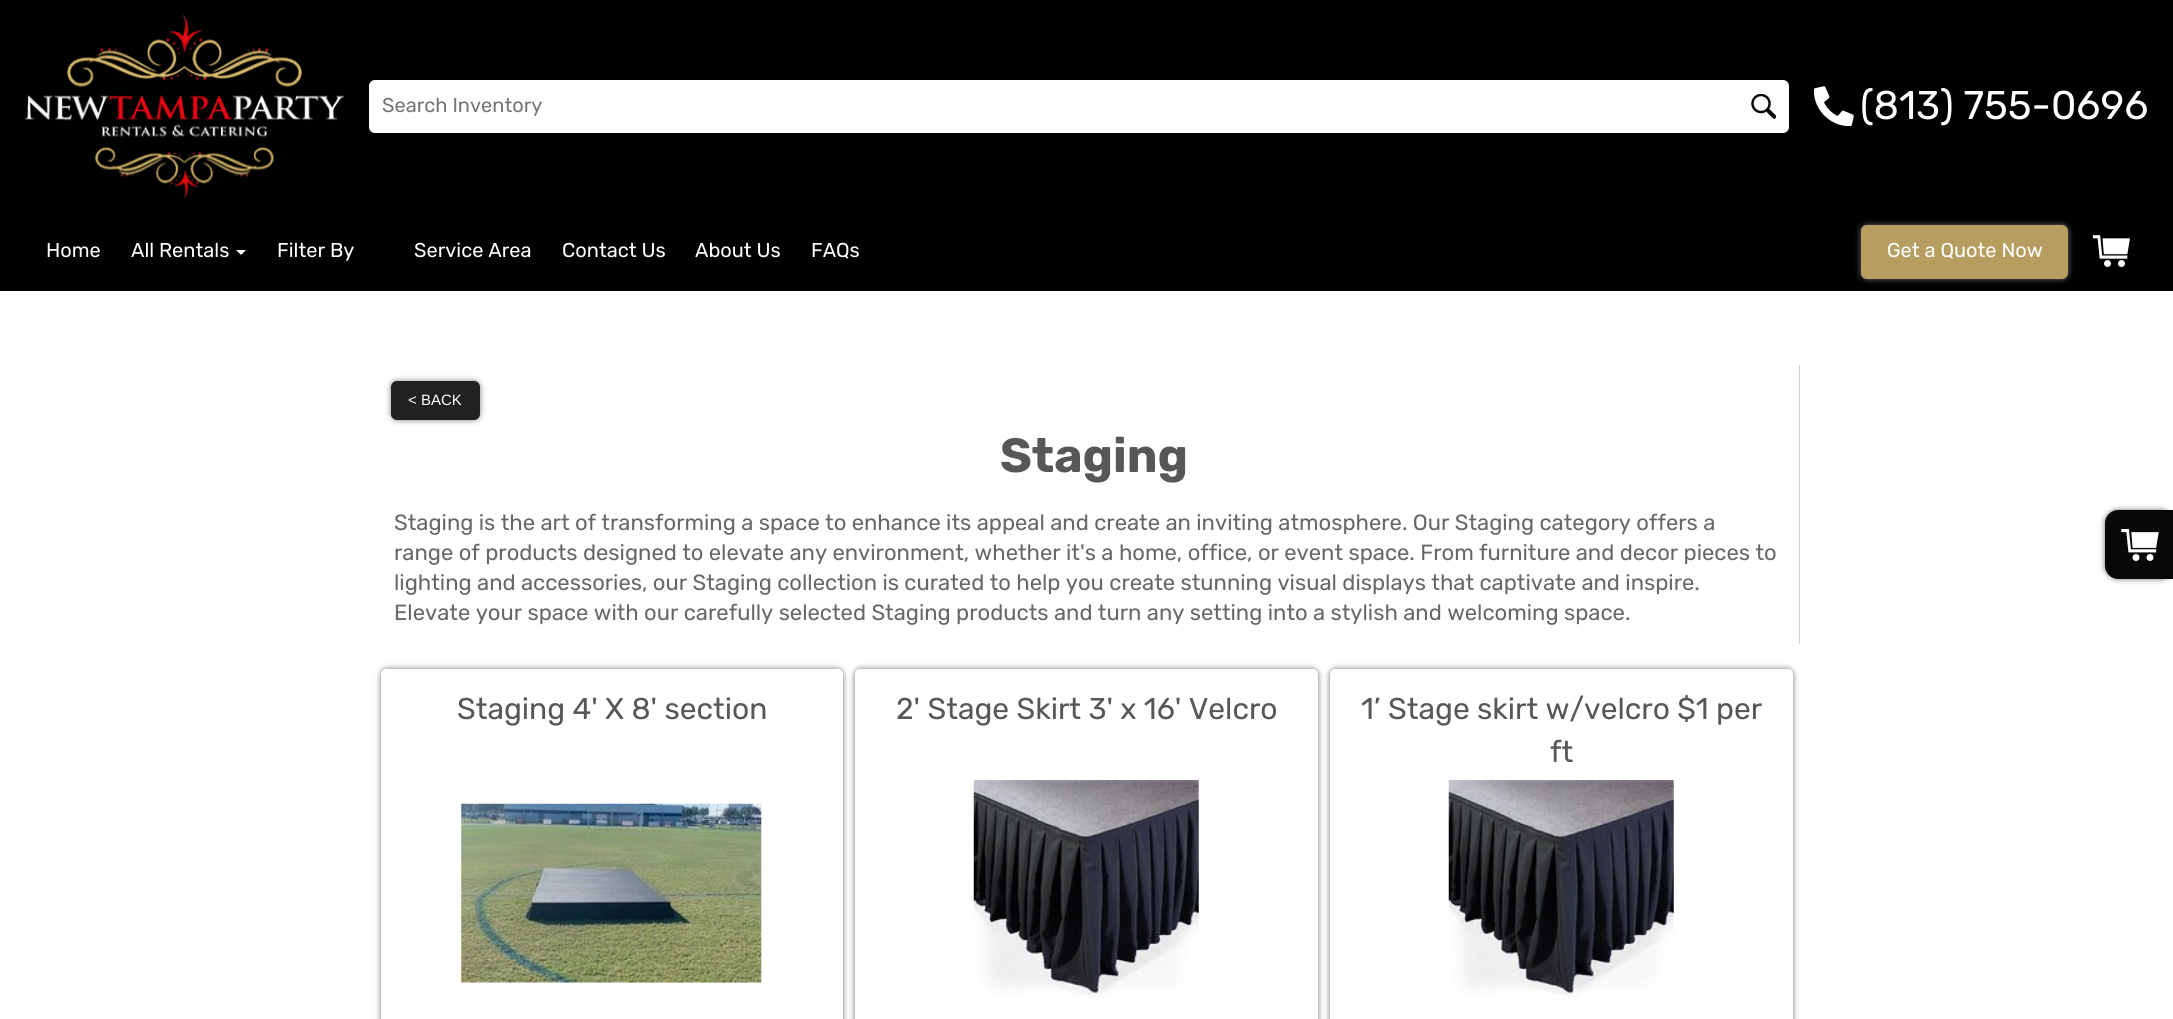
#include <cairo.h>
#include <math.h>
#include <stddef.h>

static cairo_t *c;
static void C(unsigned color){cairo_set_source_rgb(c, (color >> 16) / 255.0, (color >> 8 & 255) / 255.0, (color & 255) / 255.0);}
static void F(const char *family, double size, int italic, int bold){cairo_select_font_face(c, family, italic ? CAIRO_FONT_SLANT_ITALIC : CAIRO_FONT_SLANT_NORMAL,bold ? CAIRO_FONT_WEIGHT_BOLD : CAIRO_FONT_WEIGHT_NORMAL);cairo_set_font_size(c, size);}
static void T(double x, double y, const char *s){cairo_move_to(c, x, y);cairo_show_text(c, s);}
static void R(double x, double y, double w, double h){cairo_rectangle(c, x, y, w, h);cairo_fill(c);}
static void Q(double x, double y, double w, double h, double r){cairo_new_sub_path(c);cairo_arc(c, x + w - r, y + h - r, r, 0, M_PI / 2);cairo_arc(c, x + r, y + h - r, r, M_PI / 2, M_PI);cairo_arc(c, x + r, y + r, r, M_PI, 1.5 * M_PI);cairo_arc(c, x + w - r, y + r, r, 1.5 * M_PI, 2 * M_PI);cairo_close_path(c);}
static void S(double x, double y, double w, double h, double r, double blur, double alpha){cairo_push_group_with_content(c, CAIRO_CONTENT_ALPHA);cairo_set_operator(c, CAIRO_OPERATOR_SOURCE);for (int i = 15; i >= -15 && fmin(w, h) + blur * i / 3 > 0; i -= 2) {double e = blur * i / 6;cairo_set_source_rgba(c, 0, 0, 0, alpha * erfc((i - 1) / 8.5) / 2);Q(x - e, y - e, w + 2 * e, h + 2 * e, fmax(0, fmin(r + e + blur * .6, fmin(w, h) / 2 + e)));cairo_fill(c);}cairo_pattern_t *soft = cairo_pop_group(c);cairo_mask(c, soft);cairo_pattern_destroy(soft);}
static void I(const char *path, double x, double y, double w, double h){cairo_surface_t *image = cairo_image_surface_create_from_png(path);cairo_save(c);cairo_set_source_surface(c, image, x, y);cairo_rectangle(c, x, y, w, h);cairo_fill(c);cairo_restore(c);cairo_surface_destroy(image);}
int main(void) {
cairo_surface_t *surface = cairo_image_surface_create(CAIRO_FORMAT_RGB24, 2173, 1019);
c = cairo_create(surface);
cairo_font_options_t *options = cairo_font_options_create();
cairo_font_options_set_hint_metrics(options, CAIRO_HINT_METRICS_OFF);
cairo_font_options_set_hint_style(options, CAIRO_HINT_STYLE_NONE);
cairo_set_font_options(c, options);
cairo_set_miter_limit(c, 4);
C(0xffffff);
cairo_paint(c);
C(0x000000);
R(0,0,2173,291);
I("1.png",25,13,319,186);
C(0xffffff);
Q(369,80,1420,53,6);
cairo_fill(c);
F("Rubik",20,0,0);
C(0x757575);
T(382,112,"Search Inventory");
I("2.png",1751,94,25,25);
I("3.png",1814,86,40,40);
F("Rubik",40,0,0);
C(0xffffff);
T(1860,119,"(813) 755-0696");
F("Rubik",20,0,0);
T(46,257,"Home");
T(131,257,"All Rentals");
cairo_new_path(c);
cairo_move_to(c,236,250);
cairo_line_to(c,246,250);
cairo_line_to(c,241,255);
cairo_close_path(c);
cairo_fill(c);
T(277,257,"Filter By");
T(414,257,"Service Area");
T(562,257,"Contact Us");
T(695,257,"About Us");
T(811,257,"FAQs");
C(0x707070);
S(1861,225,207,54,6,3,1);
C(0xb59e5f);
Q(1861,225,207,54,6);
cairo_fill(c);
C(0xffffff);
T(1887,257,"Get a Quote Now");
I("4.png",2093,235,37,32);
C(0xd1d1d1);
R(1799,365,1,279);
C(0x7e7e7e);
S(391,381,89,39,6,3,1);
C(0x212121);
Q(391,381,89,39,6);
cairo_fill(c);
F("Liberation Sans",15,0,0);
C(0xffffff);
T(408,405,"< BACK");
F("Rubik",48,0,1);
C(0x575757);
T(1000,472,"Staging");
F("Rubik",22,0,0);
C(0x676767);
T(394,530,"Staging is the art of transforming a space to enhance its appeal and create an inviting atmosphere. Our Staging category offers a");
T(394,560,"range of products designed to elevate any environment, whether it's a home, office, or event space. From furniture and decor pieces to");
T(394,590,"lighting and accessories, our Staging collection is curated to help you create stunning visual displays that captivate and inspire.");
T(394,620,"Elevate your space with our carefully selected Staging products and turn any setting into a stylish and welcoming space.");
cairo_save(c);
cairo_set_fill_rule(c,CAIRO_FILL_RULE_EVEN_ODD);
cairo_new_path(c);
cairo_move_to(c,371,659);
cairo_line_to(c,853,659);
cairo_line_to(c,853,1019);
cairo_line_to(c,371,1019);
cairo_close_path(c);
cairo_move_to(c,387,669);
cairo_line_to(c,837,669);
cairo_curve_to(c,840.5,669,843,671.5,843,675);
cairo_line_to(c,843,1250);
cairo_curve_to(c,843,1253.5,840.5,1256,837,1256);
cairo_line_to(c,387,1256);
cairo_curve_to(c,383.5,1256,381,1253.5,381,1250);
cairo_line_to(c,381,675);
cairo_curve_to(c,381,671.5,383.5,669,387,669);
cairo_close_path(c);
cairo_clip(c);
C(0x707070);
S(381,669,462,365,6,3,1);
cairo_restore(c);
F("Rubik",30,0,0);
C(0x575757);
T(457,719,"Staging 4' X 8' section");
I("5.png",461,803,301,180);
cairo_save(c);
cairo_set_fill_rule(c,CAIRO_FILL_RULE_EVEN_ODD);
cairo_new_path(c);
cairo_move_to(c,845,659);
cairo_line_to(c,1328,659);
cairo_line_to(c,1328,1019);
cairo_line_to(c,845,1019);
cairo_close_path(c);
cairo_move_to(c,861,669);
cairo_line_to(c,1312,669);
cairo_curve_to(c,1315.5,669,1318,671.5,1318,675);
cairo_line_to(c,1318,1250);
cairo_curve_to(c,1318,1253.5,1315.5,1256,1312,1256);
cairo_line_to(c,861,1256);
cairo_curve_to(c,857.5,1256,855,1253.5,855,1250);
cairo_line_to(c,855,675);
cairo_curve_to(c,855,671.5,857.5,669,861,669);
cairo_close_path(c);
cairo_clip(c);
C(0x707070);
S(855,669,463,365,6,3,1);
cairo_restore(c);
T(896,719,"2' Stage Skirt 3' x 16' Velcro");
I("6.png",973,780,226,220);
cairo_save(c);
cairo_set_fill_rule(c,CAIRO_FILL_RULE_EVEN_ODD);
cairo_new_path(c);
cairo_move_to(c,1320,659);
cairo_line_to(c,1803,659);
cairo_line_to(c,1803,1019);
cairo_line_to(c,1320,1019);
cairo_close_path(c);
cairo_move_to(c,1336,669);
cairo_line_to(c,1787,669);
cairo_curve_to(c,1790.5,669,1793,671.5,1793,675);
cairo_line_to(c,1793,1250);
cairo_curve_to(c,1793,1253.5,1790.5,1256,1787,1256);
cairo_line_to(c,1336,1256);
cairo_curve_to(c,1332.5,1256,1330,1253.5,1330,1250);
cairo_line_to(c,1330,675);
cairo_curve_to(c,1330,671.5,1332.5,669,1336,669);
cairo_close_path(c);
cairo_clip(c);
C(0x707070);
S(1330,669,463,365,6,3,1);
cairo_restore(c);
T(1361,719,"1’ Stage skirt w/velcro $1 per");
T(1550,762,"ft");
I("7.png",1448,780,226,220);
C(0x707070);
S(2105,510,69,69,13,3,1);
C(0x080808);
cairo_new_path(c);
cairo_move_to(c,2118,510);
cairo_line_to(c,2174,510);
cairo_line_to(c,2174,579);
cairo_line_to(c,2118,579);
cairo_curve_to(c,2111,579,2105,573,2105,566);
cairo_line_to(c,2105,523);
cairo_curve_to(c,2105,516,2111,510,2118,510);
cairo_close_path(c);
cairo_fill(c);
I("8.png",2121,529,38,32);
cairo_surface_write_to_png(surface, "o.png");
cairo_font_options_destroy(options);
cairo_destroy(c);
cairo_surface_destroy(surface);
return 0;
}
